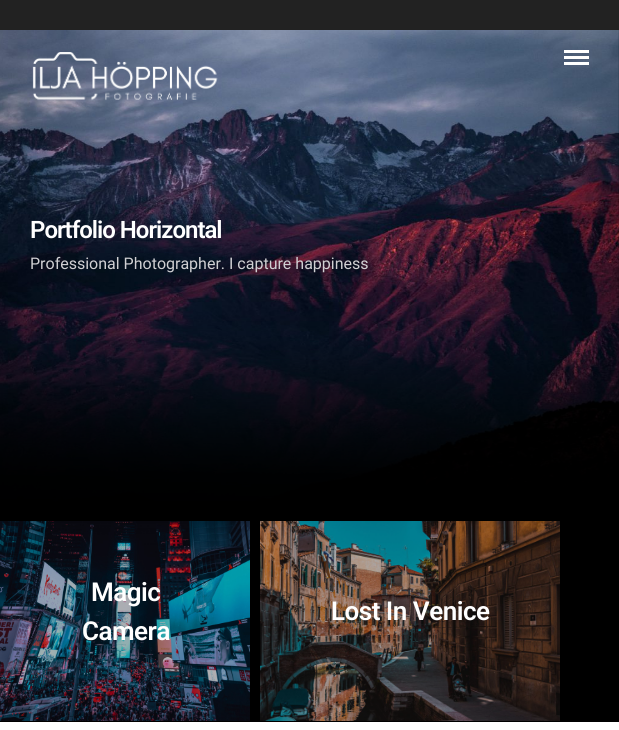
#include <cairo.h>
#include <math.h>
#include <stddef.h>

static cairo_t *c;
static void C(unsigned color){cairo_set_source_rgb(c, (color >> 16) / 255.0, (color >> 8 & 255) / 255.0, (color & 255) / 255.0);}
static void F(const char *family, double size, int italic, int bold){cairo_select_font_face(c, family, italic ? CAIRO_FONT_SLANT_ITALIC : CAIRO_FONT_SLANT_NORMAL,bold ? CAIRO_FONT_WEIGHT_BOLD : CAIRO_FONT_WEIGHT_NORMAL);cairo_set_font_size(c, size);}
static void T(double x, double y, const char *s){cairo_move_to(c, x, y);cairo_show_text(c, s);}
static void L(double x, double y, const char *s, double letter, double word){cairo_move_to(c, x, y);while (*s) {char ch[5] = {0};int n = 0;do ch[n++] = *s++; while ((*s & 0xC0) == 0x80);cairo_show_text(c, ch);cairo_rel_move_to(c, letter + word * (*ch == ' '), 0);}}
static void R(double x, double y, double w, double h){cairo_rectangle(c, x, y, w, h);cairo_fill(c);}
static void I(const char *path, double x, double y, double w, double h){cairo_surface_t *image = cairo_image_surface_create_from_png(path);cairo_save(c);cairo_set_source_surface(c, image, x, y);cairo_rectangle(c, x, y, w, h);cairo_fill(c);cairo_restore(c);cairo_surface_destroy(image);}
int main(void) {
cairo_surface_t *surface = cairo_image_surface_create(CAIRO_FORMAT_RGB24, 619, 730);
c = cairo_create(surface);
cairo_font_options_t *options = cairo_font_options_create();
cairo_font_options_set_hint_metrics(options, CAIRO_HINT_METRICS_OFF);
cairo_font_options_set_hint_style(options, CAIRO_HINT_STYLE_NONE);
cairo_set_font_options(c, options);
cairo_set_miter_limit(c, 4);
cairo_pattern_t *gradient;
C(0x000000);
cairo_paint(c);
C(0x222222);
R(0,0,619,30);
I("2.png",0,30,619,477);
I("1.png",32,52,186,48);
C(0xffffff);
R(564,50,25,3);
R(564,56,25,3);
R(564,62,25,3);
gradient = cairo_pattern_create_linear(309,0,310,511);
cairo_pattern_add_color_stop_rgba(gradient,0,0,0,0,0);
cairo_pattern_add_color_stop_rgba(gradient,.6,0,0,0,0);
cairo_pattern_add_color_stop_rgba(gradient,.66,0,0,0,.1);
cairo_pattern_add_color_stop_rgba(gradient,.93,0,0,0,.95);
cairo_pattern_add_color_stop_rgba(gradient,1,0,0,0,1);
cairo_set_source(c,gradient);
cairo_pattern_destroy(gradient);
R(0,315,619,192);
F("Roboto SemiBold",24,0,0);
C(0xffffff);
L(30,238,"Portfolio Horizontal",-1,0);
F("Roboto",16,0,0);
C(0xd0d0d3);
T(30,269,"Professional Photographer. I capture happiness");
I("3.png",0,521,250,200);
F("Roboto SemiBold",26,0,0);
C(0xffffff);
L(91,601,"Magic",-.5,0);
L(82,640,"Camera",-.5,0);
I("4.png",260,521,300,200);
L(331,620,"Lost In Venice",-.5,0);
R(0,722,619,8);
cairo_surface_write_to_png(surface, "o.png");
cairo_font_options_destroy(options);
cairo_destroy(c);
cairo_surface_destroy(surface);
return 0;
}
